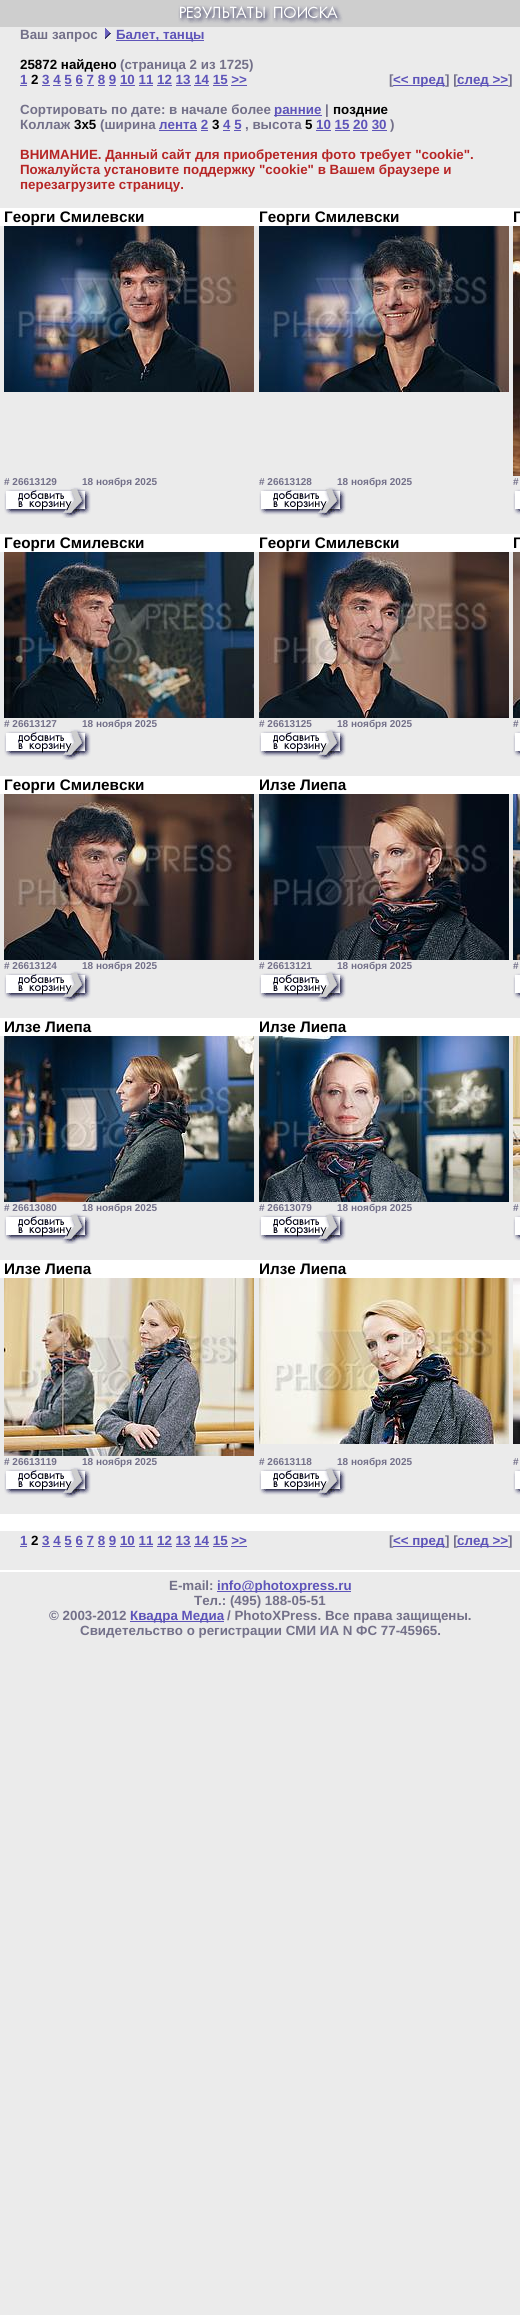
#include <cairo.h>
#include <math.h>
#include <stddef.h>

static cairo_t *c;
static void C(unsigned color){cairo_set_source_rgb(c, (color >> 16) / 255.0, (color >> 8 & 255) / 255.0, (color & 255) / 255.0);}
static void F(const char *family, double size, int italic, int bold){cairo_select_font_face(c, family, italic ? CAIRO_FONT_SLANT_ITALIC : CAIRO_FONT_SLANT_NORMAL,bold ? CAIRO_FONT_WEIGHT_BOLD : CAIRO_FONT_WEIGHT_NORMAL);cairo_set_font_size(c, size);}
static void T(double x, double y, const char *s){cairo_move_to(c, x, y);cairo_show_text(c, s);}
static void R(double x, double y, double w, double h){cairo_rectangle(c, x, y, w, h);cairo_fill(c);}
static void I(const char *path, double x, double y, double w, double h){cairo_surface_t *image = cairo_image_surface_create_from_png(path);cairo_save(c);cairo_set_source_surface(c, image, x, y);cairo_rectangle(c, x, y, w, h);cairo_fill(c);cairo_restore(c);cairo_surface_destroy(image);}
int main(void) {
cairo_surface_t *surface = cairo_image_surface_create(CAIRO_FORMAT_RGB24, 520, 2315);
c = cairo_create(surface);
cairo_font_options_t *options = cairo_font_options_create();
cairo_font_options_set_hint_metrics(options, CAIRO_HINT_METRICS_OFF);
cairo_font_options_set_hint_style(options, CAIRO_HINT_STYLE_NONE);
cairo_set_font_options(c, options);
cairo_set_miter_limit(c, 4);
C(0xebebeb);
cairo_paint(c);
C(0xcecece);
R(0,0,520,27);
I("1.png",178,5,165,19);
F("Liberation Sans",13.35,0,1);
C(0x737089);
T(20,39,"Ваш запрос");
I("2.png",105,28,6,11);
C(0x5e54b9);
R(116,40,88,1);
T(116,39,"Балет, танцы");
C(0x000000);
T(20,69,"25872 найдено");
C(0x737089);
T(120,69,"(страница 2 из 1725)");
C(0x5e54b9);
T(20,84,"1");
R(20,85,7,1);
C(0x000000);
T(31,84,"2");
C(0x5e54b9);
T(42,84,"3 4 5 6 7 8 9 10 11 12 13 14 15 >>");
R(42,85,8,1);
R(53,85,8,1);
R(65,85,7,1);
R(76,85,7,1);
R(87,85,7,1);
R(98,85,7,1);
R(109,85,7,1);
R(120,85,15,1);
R(139,85,14,1);
R(157,85,15,1);
R(176,85,15,1);
R(194,85,15,1);
R(213,85,15,1);
R(231,85,16,1);
C(0x737089);
T(389,84,"[");
C(0x5e54b9);
R(393,85,52,1);
T(393,84,"<< пред");
C(0x737089);
T(445,84,"] [");
C(0x5e54b9);
R(457,85,51,1);
T(457,84,"след >>");
C(0x737089);
T(508,84,"]");
T(20,114,"Сортировать по дате: в начале более");
C(0x5e54b9);
R(274,115,48,1);
T(274,114,"ранние");
C(0x737089);
T(325,114,"|");
C(0x000000);
T(333,114,"поздние");
C(0x737089);
T(20,129,"Коллаж");
C(0x000000);
T(74,129,"3x5");
C(0x737089);
T(100,129,"(ширина");
C(0x5e54b9);
T(159,129,"лента 2");
R(159,130,38,1);
C(0x000000);
T(212,129,"3");
C(0x5e54b9);
T(223,129,"4 5");
R(223,130,7,1);
C(0x737089);
T(245,129,", высота");
C(0x000000);
T(305,129,"5");
C(0x5e54b9);
T(316,129,"10 15 20 30");
R(316,130,15,1);
C(0x737089);
T(390,129,")");
C(0x5e54b9);
R(201,130,7,1);
R(234,130,7,1);
R(335,130,15,1);
R(353,130,15,1);
R(372,130,15,1);
C(0xb62525);
T(20,159,"ВНИМАНИЕ. Данный сайт для приобретения фото требует \"cookie\".");
T(20,174,"Пожалуйста установите поддержку \"cookie\" в Вашем браузере и");
T(20,189,"перезагрузите страницу.");
C(0xffffff);
R(0,208,520,18);
F("Liberation Sans",15.25,0,1);
C(0x000000);
T(4,222,"Георги Смилевски");
T(259,222,"Георги Смилевски");
T(513,222,"Г");
I("3.png",4,226,250,166);
I("4.png",259,226,250,166);
I("5.png",513,226,7,250);
F("Liberation Sans",10,0,1);
C(0x737089);
T(4,485,"# 26613129");
T(82,485,"18 ноября 2025");
I("6.png",4,487,87,31);
T(259,485,"# 26613128");
T(337,485,"18 ноября 2025");
I("6.png",259,487,87,31);
T(513,485,"#");
I("7.png",513,489,7,26);
C(0xffffff);
R(0,534,520,18);
F("Liberation Sans",15.25,0,1);
C(0x000000);
T(4,548,"Георги Смилевски");
T(259,548,"Георги Смилевски");
T(513,548,"Г");
I("8.png",4,552,250,166);
I("9.png",259,552,250,166);
I("10.png",513,552,7,166);
F("Liberation Sans",10,0,1);
C(0x737089);
T(4,727,"# 26613127");
T(82,727,"18 ноября 2025");
I("6.png",4,729,87,31);
T(259,727,"# 26613125");
T(337,727,"18 ноября 2025");
I("6.png",259,729,87,31);
T(513,727,"#");
I("7.png",513,731,7,26);
C(0xffffff);
R(0,776,520,18);
F("Liberation Sans",15.25,0,1);
C(0x000000);
T(4,790,"Георги Смилевски");
T(259,790,"Илзе Лиепа");
I("11.png",4,794,250,166);
I("12.png",259,794,250,166);
I("13.png",513,794,7,166);
F("Liberation Sans",10,0,1);
C(0x737089);
T(4,969,"# 26613124");
T(82,969,"18 ноября 2025");
I("6.png",4,971,87,31);
T(259,969,"# 26613121");
T(337,969,"18 ноября 2025");
I("6.png",259,971,87,31);
T(513,969,"#");
I("7.png",513,973,7,26);
C(0xffffff);
R(0,1018,520,18);
F("Liberation Sans",15.25,0,1);
C(0x000000);
T(4,1032,"Илзе Лиепа");
T(259,1032,"Илзе Лиепа");
I("14.png",4,1036,250,166);
I("15.png",259,1036,250,166);
I("16.png",513,1036,7,166);
F("Liberation Sans",10,0,1);
C(0x737089);
T(4,1211,"# 26613080");
T(82,1211,"18 ноября 2025");
I("6.png",4,1213,87,31);
T(259,1211,"# 26613079");
T(337,1211,"18 ноября 2025");
I("6.png",259,1213,87,31);
T(513,1211,"#");
I("7.png",513,1215,7,26);
C(0xffffff);
R(0,1260,520,18);
F("Liberation Sans",15.25,0,1);
C(0x000000);
T(4,1274,"Илзе Лиепа");
T(259,1274,"Илзе Лиепа");
I("17.png",4,1278,250,178);
I("18.png",259,1278,250,166);
I("19.png",513,1278,7,166);
F("Liberation Sans",10,0,1);
C(0x737089);
T(4,1465,"# 26613119");
T(82,1465,"18 ноября 2025");
I("6.png",4,1467,87,31);
T(259,1465,"# 26613118");
T(337,1465,"18 ноября 2025");
I("6.png",259,1467,87,31);
T(513,1465,"#");
I("7.png",513,1469,7,26);
C(0xffffff);
R(0,1514,520,17);
F("Liberation Sans",13.35,0,1);
C(0x5e54b9);
T(20,1545,"1");
R(20,1546,7,1);
C(0x000000);
T(31,1545,"2");
C(0x5e54b9);
T(42,1545,"3 4 5 6 7 8 9 10 11 12 13 14 15 >>");
R(42,1546,8,1);
R(53,1546,8,1);
R(65,1546,7,1);
R(76,1546,7,1);
R(87,1546,7,1);
R(98,1546,7,1);
R(109,1546,7,1);
R(120,1546,15,1);
R(139,1546,14,1);
R(157,1546,15,1);
R(176,1546,15,1);
R(194,1546,15,1);
R(213,1546,15,1);
R(231,1546,16,1);
C(0x737089);
T(389,1545,"[");
C(0x5e54b9);
R(393,1546,52,1);
T(393,1545,"<< пред");
C(0x737089);
T(445,1545,"] [");
C(0x5e54b9);
R(457,1546,51,1);
T(457,1545,"след >>");
C(0x737089);
T(508,1545,"]");
C(0xffffff);
R(0,1570,520,2);
C(0x737089);
T(169,1590,"E-mail:");
C(0x5e54b9);
R(217,1591,134,1);
T(217,1590,"info@photoxpress.ru");
C(0x737089);
T(194,1605,"Тел.: (495) 188-05-51");
T(49,1620,"© 2003-2012");
C(0x5e54b9);
R(130,1621,94,1);
T(130,1620,"Квадра Медиа");
C(0x737089);
T(227,1620,"/ PhotoXPress. Все права защищены.");
T(80,1635,"Свидетельство о регистрации СМИ ИА N ФС 77-45965.");
cairo_surface_write_to_png(surface, "o.png");
cairo_font_options_destroy(options);
cairo_destroy(c);
cairo_surface_destroy(surface);
return 0;
}
